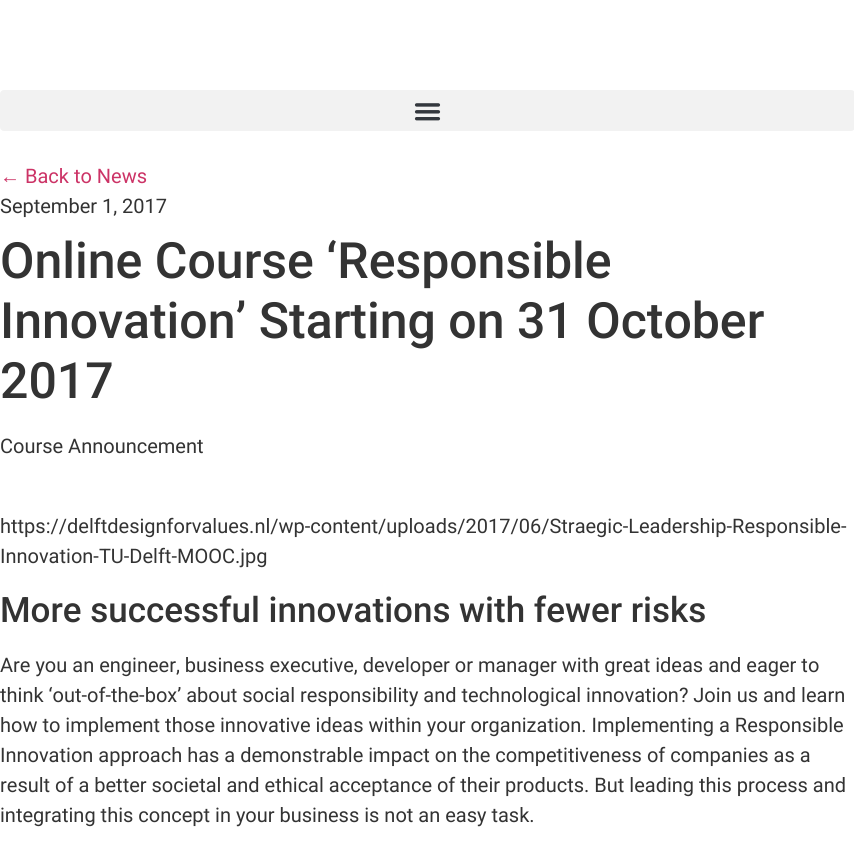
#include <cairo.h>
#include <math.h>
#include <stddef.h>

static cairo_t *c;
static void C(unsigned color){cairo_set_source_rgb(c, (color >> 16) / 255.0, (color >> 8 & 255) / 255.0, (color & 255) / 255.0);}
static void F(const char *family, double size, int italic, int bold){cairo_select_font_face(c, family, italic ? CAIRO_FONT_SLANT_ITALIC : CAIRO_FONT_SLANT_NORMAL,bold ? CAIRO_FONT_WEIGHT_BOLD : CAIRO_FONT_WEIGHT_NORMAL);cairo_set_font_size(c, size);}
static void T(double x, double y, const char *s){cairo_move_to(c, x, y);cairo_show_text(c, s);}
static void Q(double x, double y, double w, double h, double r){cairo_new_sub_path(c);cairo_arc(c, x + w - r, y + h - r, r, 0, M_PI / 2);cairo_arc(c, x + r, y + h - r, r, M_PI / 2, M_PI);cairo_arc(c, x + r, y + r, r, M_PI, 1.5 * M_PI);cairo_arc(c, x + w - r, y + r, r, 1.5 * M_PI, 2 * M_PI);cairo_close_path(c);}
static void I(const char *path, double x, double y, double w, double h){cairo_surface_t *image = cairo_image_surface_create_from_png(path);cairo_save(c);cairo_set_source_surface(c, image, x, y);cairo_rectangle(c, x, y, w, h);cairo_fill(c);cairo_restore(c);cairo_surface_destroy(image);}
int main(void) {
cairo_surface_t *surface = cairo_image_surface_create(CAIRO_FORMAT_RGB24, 854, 848);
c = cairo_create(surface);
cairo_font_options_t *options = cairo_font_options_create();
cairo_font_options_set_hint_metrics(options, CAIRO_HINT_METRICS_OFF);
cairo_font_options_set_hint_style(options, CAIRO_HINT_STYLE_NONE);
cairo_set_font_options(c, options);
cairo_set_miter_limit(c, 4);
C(0xffffff);
cairo_paint(c);
C(0xf2f2f2);
Q(0,90,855,41,4);
cairo_fill(c);
I("1.png",414,103,27,18);
F("Liberation Sans",20,0,0);
C(0xcc3366);
T(0,183,"←");
F("Roboto",20,0,0);
T(25,183,"Back to News");
C(0x333333);
T(0,213,"September 1, 2017");
F("Roboto Medium",50,0,0);
T(0,278,"Online Course ‘Responsible");
T(0,338,"Innovation’ Starting on 31 October");
T(0,398,"2017");
F("Roboto",20,0,0);
T(0,453,"Course Announcement");
T(0,533,"https://delftdesignforvalues.nl/wp-content/uploads/2017/06/Straegic-Leadership-Responsible-");
T(0,563,"Innovation-TU-Delft-MOOC.jpg");
F("Roboto Medium",35,0,0);
T(0,622,"More successful innovations with fewer risks");
F("Roboto",20,0,0);
T(0,672,"Are you an engineer, business executive, developer or manager with great ideas and eager to");
T(0,702,"think ‘out-of-the-box’ about social responsibility and technological innovation? Join us and learn");
T(0,732,"how to implement those innovative ideas within your organization. Implementing a Responsible");
T(0,762,"Innovation approach has a demonstrable impact on the competitiveness of companies as a");
T(0,792,"result of a better societal and ethical acceptance of their products. But leading this process and");
T(0,822,"integrating this concept in your business is not an easy task.");
cairo_surface_write_to_png(surface, "o.png");
cairo_font_options_destroy(options);
cairo_destroy(c);
cairo_surface_destroy(surface);
return 0;
}
